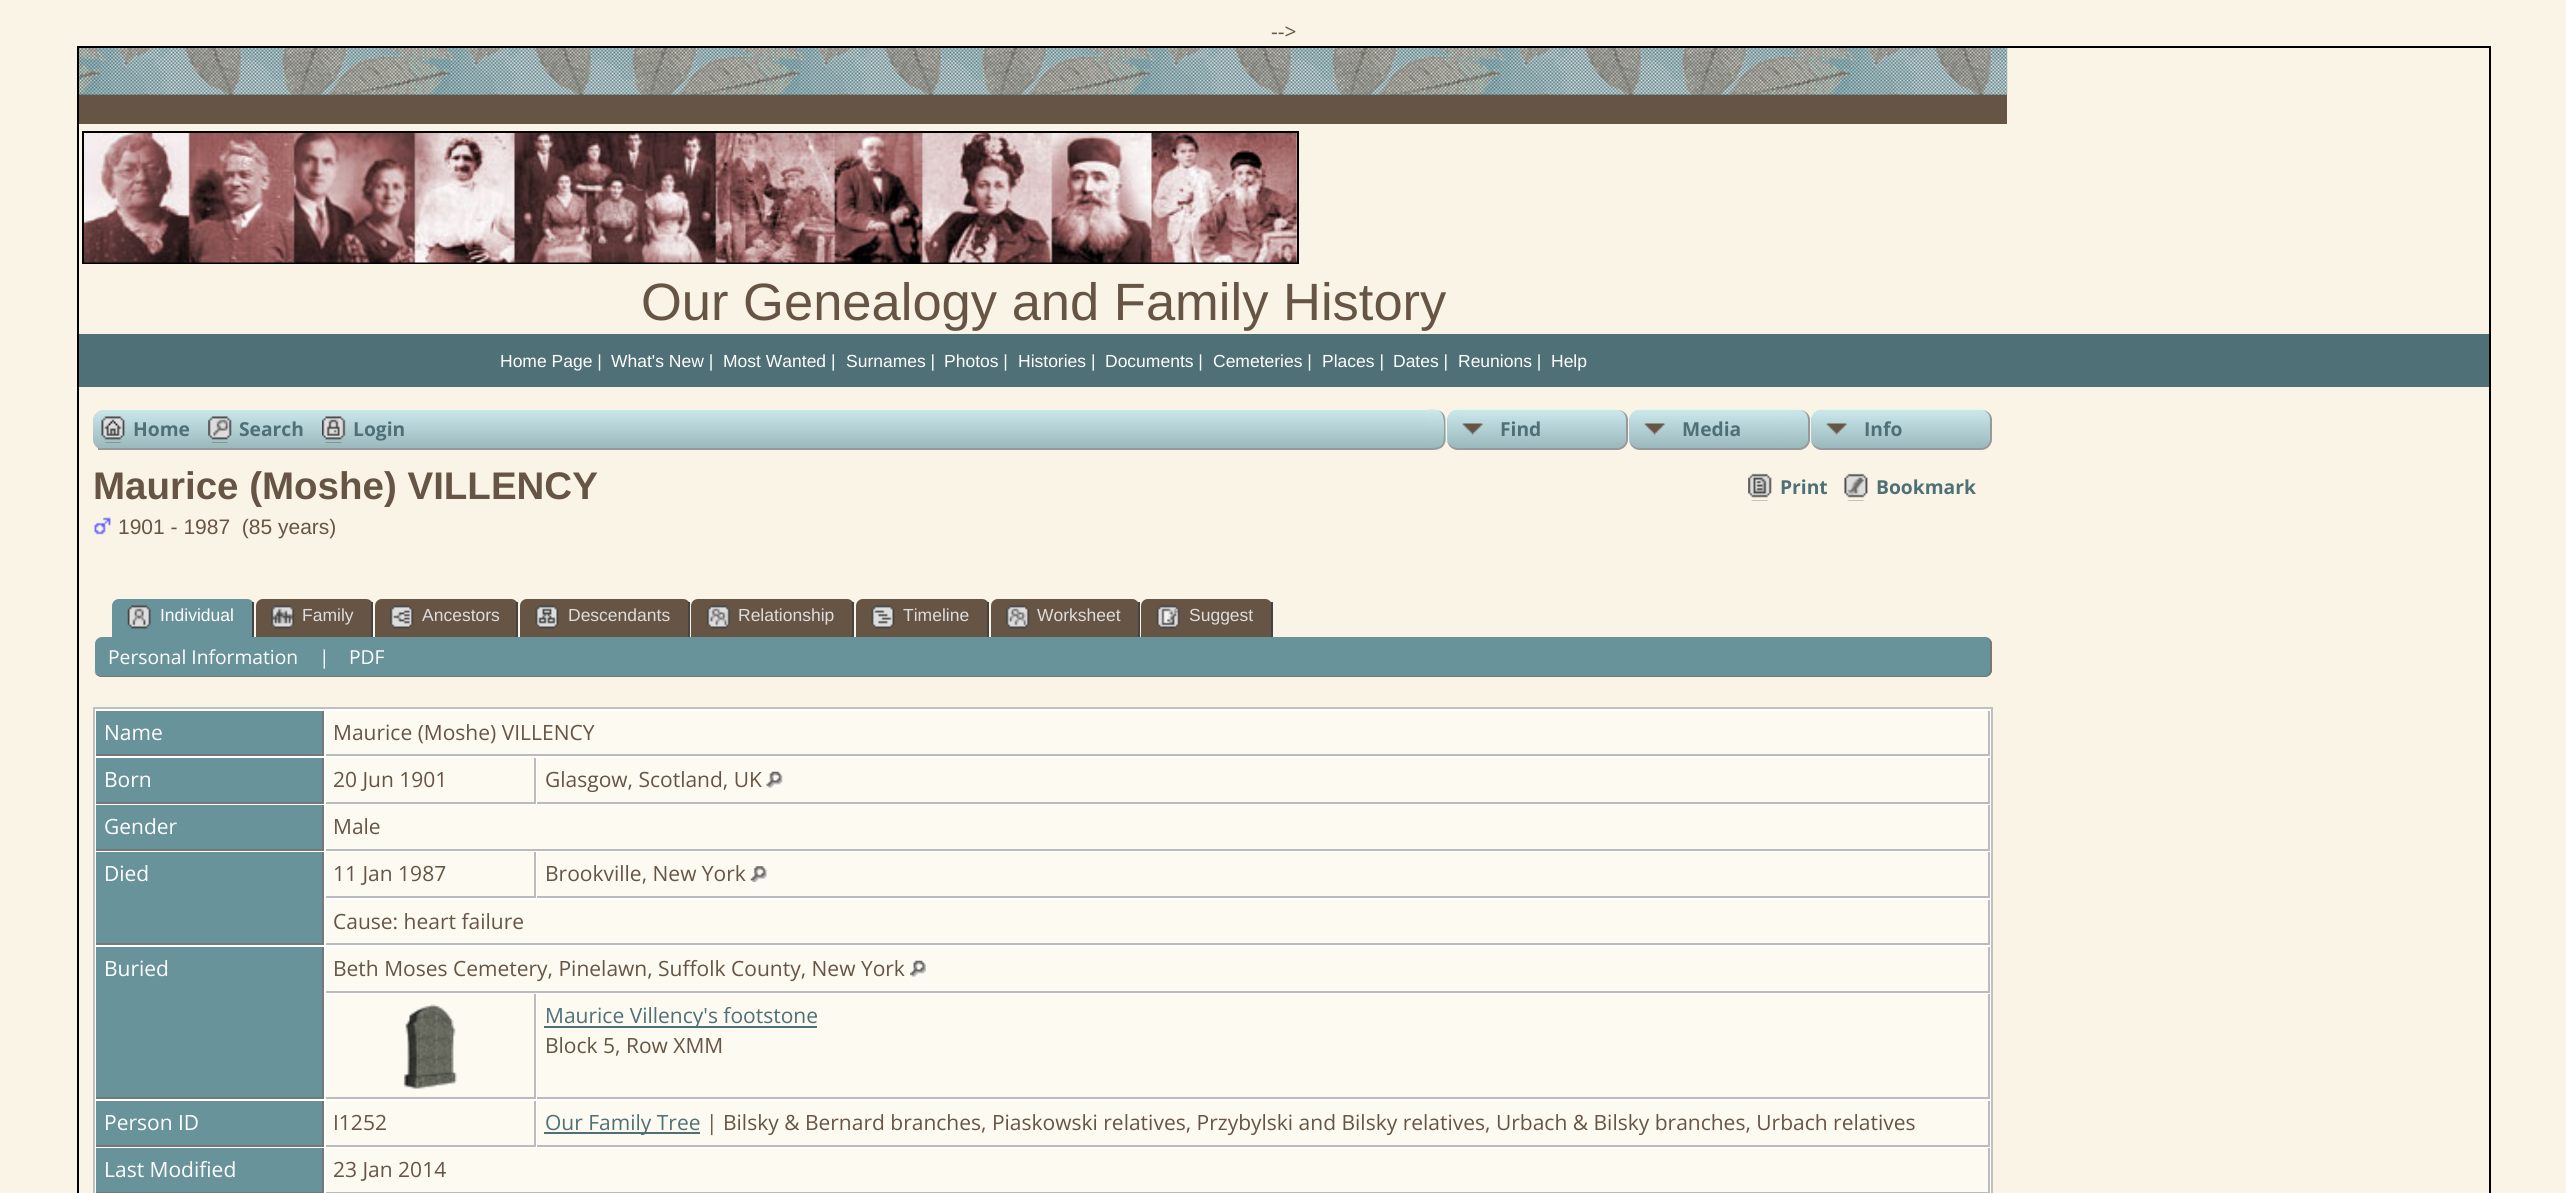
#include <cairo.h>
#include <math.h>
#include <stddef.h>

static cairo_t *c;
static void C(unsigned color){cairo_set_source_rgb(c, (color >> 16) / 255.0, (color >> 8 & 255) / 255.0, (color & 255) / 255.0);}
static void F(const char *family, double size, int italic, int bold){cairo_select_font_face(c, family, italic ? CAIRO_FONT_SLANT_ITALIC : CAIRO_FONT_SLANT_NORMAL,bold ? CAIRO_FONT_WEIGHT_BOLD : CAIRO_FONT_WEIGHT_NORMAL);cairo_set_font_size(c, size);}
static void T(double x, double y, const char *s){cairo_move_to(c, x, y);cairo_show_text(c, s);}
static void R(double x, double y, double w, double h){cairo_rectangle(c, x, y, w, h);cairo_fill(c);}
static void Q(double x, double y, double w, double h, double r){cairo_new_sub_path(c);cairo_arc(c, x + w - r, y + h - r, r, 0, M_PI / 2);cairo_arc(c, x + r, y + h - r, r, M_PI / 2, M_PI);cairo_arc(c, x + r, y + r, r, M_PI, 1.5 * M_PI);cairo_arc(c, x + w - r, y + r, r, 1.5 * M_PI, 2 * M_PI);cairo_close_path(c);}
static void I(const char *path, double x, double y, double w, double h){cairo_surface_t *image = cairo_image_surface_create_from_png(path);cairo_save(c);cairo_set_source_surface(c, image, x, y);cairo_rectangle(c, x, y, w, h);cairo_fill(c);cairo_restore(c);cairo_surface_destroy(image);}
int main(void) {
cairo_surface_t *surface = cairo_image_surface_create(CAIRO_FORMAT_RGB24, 2566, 1193);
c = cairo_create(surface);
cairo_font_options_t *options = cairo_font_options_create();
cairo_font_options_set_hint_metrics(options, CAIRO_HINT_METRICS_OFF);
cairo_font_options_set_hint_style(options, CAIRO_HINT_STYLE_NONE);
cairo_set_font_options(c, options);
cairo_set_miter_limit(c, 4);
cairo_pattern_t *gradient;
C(0xfaf4e6);
cairo_paint(c);
F("Open Sans",21,0,0);
C(0x665544);
T(1271,39,"-->");
C(0x000000);
R(77,46,2413,2);
R(2489,46,2,1147);
R(77,46,2,1147);
C(0x4e7076);
R(79,94,1928,1);
I("1.png",79,48,1929,47);
C(0x665544);
R(79,95,1928,29);
cairo_rectangle(c,83,132,1215,131);
C(0x000000);
cairo_stroke(c);
I("2.png",84,133,1213,130);
F("Liberation Sans",52.5,0,0);
C(0x665544);
T(641,320,"Our Genealogy and Family History");
C(0x4e7076);
R(79,334,2410,53);
F("Liberation Sans",17.5,0,0);
C(0xffffff);
T(500,367,"Home Page |");
T(611,367,"What's New |");
T(723,367,"Most Wanted |");
T(846,367,"Surnames |");
T(944,367,"Photos |");
T(1018,367,"Histories |");
T(1105,367,"Documents |");
T(1213,367,"Cemeteries |");
T(1322,367,"Places |");
T(1393,367,"Dates |");
T(1458,367,"Reunions |");
T(1551,367,"Help");
C(0xb4d1d6);
Q(93,410,1900,40,11);
cairo_fill(c);
cairo_save(c);
Q(93,410,1900,40,11);
cairo_clip(c);
gradient = cairo_pattern_create_linear(1043,409,1043,448);
cairo_pattern_add_color_stop_rgba(gradient,0,0.796,0.914,0.929,1);
cairo_pattern_add_color_stop_rgba(gradient,1,0.608,0.725,0.741,1);
cairo_set_source(c,gradient);
cairo_pattern_destroy(gradient);
cairo_new_path(c);
cairo_move_to(c,104,410);
cairo_line_to(c,1982,410);
cairo_curve_to(c,1988,410,1993,415,1993,421);
cairo_line_to(c,1993,448);
cairo_line_to(c,93,448);
cairo_line_to(c,93,421);
cairo_curve_to(c,93,415,98,410,104,410);
cairo_close_path(c);
cairo_fill(c);
cairo_restore(c);
C(0x999999);
R(98,448,1328,2);
I("3.png",101,416,24,27);
F("Open Sans",19.25,0,1);
C(0x4e7076);
T(133,436,"Home");
I("4.png",208,416,24,27);
T(239,436,"Search");
I("5.png",322,416,24,27);
T(353,436,"Login");
C(0xfaf4e6);
R(1435,410,558,40);
cairo_save(c);
cairo_new_path(c);
cairo_move_to(c,1426,410);
cairo_line_to(c,1435,410);
cairo_curve_to(c,1441,410,1446,415,1446,421);
cairo_line_to(c,1446,439);
cairo_curve_to(c,1446,445,1441,450,1435,450);
cairo_line_to(c,1426,450);
cairo_close_path(c);
cairo_clip(c);
gradient = cairo_pattern_create_linear(1435,410,1435,448);
cairo_pattern_add_color_stop_rgba(gradient,0,0.796,0.914,0.929,1);
cairo_pattern_add_color_stop_rgba(gradient,1,0.608,0.725,0.741,1);
cairo_set_source(c,gradient);
cairo_pattern_destroy(gradient);
R(1426,410,20,38);
gradient = cairo_pattern_create_linear(1435,448,1435,487);
cairo_pattern_add_color_stop_rgba(gradient,0,0.796,0.914,0.929,1);
cairo_pattern_add_color_stop_rgba(gradient,1,0.608,0.725,0.741,1);
cairo_set_source(c,gradient);
cairo_pattern_destroy(gradient);
R(1426,448,20,2);
cairo_restore(c);
C(0x999999);
cairo_set_fill_rule(c,CAIRO_FILL_RULE_EVEN_ODD);
cairo_new_path(c);
cairo_move_to(c,1426,410);
cairo_curve_to(c,1434,410,1443,408,1445,418);
cairo_line_to(c,1445,441);
cairo_curve_to(c,1443,451,1434,450,1426,450);
cairo_close_path(c);
cairo_move_to(c,1426,410);
cairo_line_to(c,1437,410);
cairo_curve_to(c,1445,412,1444,423,1444,430);
cairo_curve_to(c,1444,447,1443,448,1426,448);
cairo_close_path(c);
cairo_fill(c);
C(0xb4d1d6);
Q(1447,410,181,40,11);
cairo_fill(c);
I("6.png",1447,409,179,39);
C(0x999999);
cairo_new_path(c);
cairo_move_to(c,1458,410);
cairo_line_to(c,1617,410);
cairo_curve_to(c,1623,410,1628,414,1628,420);
cairo_line_to(c,1628,439);
cairo_curve_to(c,1628,445,1623,450,1617,450);
cairo_line_to(c,1458,450);
cairo_curve_to(c,1452,450,1447,445,1447,439);
cairo_line_to(c,1447,420);
cairo_curve_to(c,1447,414,1452,410,1458,410);
cairo_close_path(c);
cairo_move_to(c,1458,410);
cairo_line_to(c,1617,410);
cairo_curve_to(c,1622,410,1626,414,1626,420);
cairo_line_to(c,1626,439);
cairo_curve_to(c,1626,444,1622,448,1617,448);
cairo_line_to(c,1458,448);
cairo_curve_to(c,1452,448,1447,444,1447,439);
cairo_line_to(c,1447,420);
cairo_curve_to(c,1447,414,1452,410,1458,410);
cairo_close_path(c);
cairo_fill(c);
C(0x4e7076);
T(1500,436,"Find");
C(0xb4d1d6);
Q(1629,410,181,40,11);
cairo_fill(c);
I("7.png",1629,409,179,39);
C(0x999999);
cairo_new_path(c);
cairo_move_to(c,1640,410);
cairo_line_to(c,1799,410);
cairo_curve_to(c,1805,410,1810,414,1810,420);
cairo_line_to(c,1810,439);
cairo_curve_to(c,1810,445,1805,450,1799,450);
cairo_line_to(c,1640,450);
cairo_curve_to(c,1634,450,1629,445,1629,439);
cairo_line_to(c,1629,420);
cairo_curve_to(c,1629,414,1634,410,1640,410);
cairo_close_path(c);
cairo_move_to(c,1640,410);
cairo_line_to(c,1799,410);
cairo_curve_to(c,1804,410,1808,414,1808,420);
cairo_line_to(c,1808,439);
cairo_curve_to(c,1808,444,1804,448,1799,448);
cairo_line_to(c,1640,448);
cairo_curve_to(c,1634,448,1629,444,1629,439);
cairo_line_to(c,1629,420);
cairo_curve_to(c,1629,414,1634,410,1640,410);
cairo_close_path(c);
cairo_fill(c);
C(0x4e7076);
T(1682,436,"Media");
C(0xb4d1d6);
Q(1811,410,181,40,11);
cairo_fill(c);
I("8.png",1811,409,179,39);
C(0x999999);
cairo_new_path(c);
cairo_move_to(c,1822,410);
cairo_line_to(c,1981,410);
cairo_curve_to(c,1987,410,1992,414,1992,420);
cairo_line_to(c,1992,439);
cairo_curve_to(c,1992,445,1987,450,1981,450);
cairo_line_to(c,1822,450);
cairo_curve_to(c,1816,450,1811,445,1811,439);
cairo_line_to(c,1811,420);
cairo_curve_to(c,1811,414,1816,410,1822,410);
cairo_close_path(c);
cairo_move_to(c,1822,410);
cairo_line_to(c,1981,410);
cairo_curve_to(c,1986,410,1990,414,1990,420);
cairo_line_to(c,1990,439);
cairo_curve_to(c,1990,444,1986,448,1981,448);
cairo_line_to(c,1822,448);
cairo_curve_to(c,1816,448,1811,444,1811,439);
cairo_line_to(c,1811,420);
cairo_curve_to(c,1811,414,1816,410,1822,410);
cairo_close_path(c);
cairo_fill(c);
C(0x4e7076);
T(1864,436,"Info");
F("Liberation Sans",38.5,0,1);
C(0x665544);
T(93,499,"Maurice (Moshe) VILLENCY");
I("9.png",94,517,17,18);
F("Liberation Sans",21,0,0);
T(118,534,"1901 - 1987  (85 years)");
C(0x68939b);
cairo_new_path(c);
cairo_move_to(c,119,599);
cairo_line_to(c,247,599);
cairo_curve_to(c,251,599,254,602,254,606);
cairo_line_to(c,254,637);
cairo_line_to(c,112,637);
cairo_line_to(c,112,606);
cairo_curve_to(c,112,602,115,599,119,599);
cairo_close_path(c);
cairo_fill(c);
C(0x444444);
R(252,602,2,35);
I("10.png",127,605,24,24);
F("Liberation Sans",17.5,0,0);
C(0xffffff);
T(160,621,"Individual");
C(0x665544);
cairo_new_path(c);
cairo_move_to(c,263,599);
cairo_line_to(c,366,599);
cairo_curve_to(c,370,599,373,602,373,606);
cairo_line_to(c,373,637);
cairo_line_to(c,256,637);
cairo_line_to(c,256,606);
cairo_curve_to(c,256,602,259,599,263,599);
cairo_close_path(c);
cairo_fill(c);
C(0x444444);
R(371,602,2,35);
I("11.png",271,605,24,24);
C(0xdddddd);
T(302,621,"Family");
C(0x665544);
cairo_new_path(c);
cairo_move_to(c,382,599);
cairo_line_to(c,511,599);
cairo_curve_to(c,515,599,518,602,518,606);
cairo_line_to(c,518,637);
cairo_line_to(c,375,637);
cairo_line_to(c,375,606);
cairo_curve_to(c,375,602,378,599,382,599);
cairo_close_path(c);
cairo_fill(c);
C(0x444444);
R(516,602,2,35);
I("12.png",390,605,24,24);
C(0xdddddd);
T(422,621,"Ancestors");
C(0x665544);
cairo_new_path(c);
cairo_move_to(c,527,599);
cairo_line_to(c,683,599);
cairo_curve_to(c,687,599,690,602,690,606);
cairo_line_to(c,690,637);
cairo_line_to(c,520,637);
cairo_line_to(c,520,606);
cairo_curve_to(c,520,602,523,599,527,599);
cairo_close_path(c);
cairo_fill(c);
C(0x444444);
R(688,602,2,35);
I("13.png",535,605,24,24);
C(0xdddddd);
T(568,621,"Descendants");
C(0x665544);
cairo_new_path(c);
cairo_move_to(c,698,599);
cairo_line_to(c,847,599);
cairo_curve_to(c,851,599,854,602,854,606);
cairo_line_to(c,854,637);
cairo_line_to(c,691,637);
cairo_line_to(c,691,606);
cairo_curve_to(c,691,602,694,599,698,599);
cairo_close_path(c);
cairo_fill(c);
C(0x444444);
R(852,602,2,35);
I("14.png",707,605,24,24);
C(0xdddddd);
T(738,621,"Relationship");
C(0x665544);
cairo_new_path(c);
cairo_move_to(c,863,599);
cairo_line_to(c,982,599);
cairo_curve_to(c,986,599,989,602,989,606);
cairo_line_to(c,989,637);
cairo_line_to(c,856,637);
cairo_line_to(c,856,606);
cairo_curve_to(c,856,602,859,599,863,599);
cairo_close_path(c);
cairo_fill(c);
C(0x444444);
R(987,602,2,35);
I("15.png",871,605,24,24);
C(0xdddddd);
T(903,621,"Timeline");
C(0x665544);
cairo_new_path(c);
cairo_move_to(c,998,599);
cairo_line_to(c,1132,599);
cairo_curve_to(c,1136,599,1139,602,1139,606);
cairo_line_to(c,1139,637);
cairo_line_to(c,991,637);
cairo_line_to(c,991,606);
cairo_curve_to(c,991,602,994,599,998,599);
cairo_close_path(c);
cairo_fill(c);
C(0x444444);
R(1138,602,2,35);
I("16.png",1006,605,24,24);
C(0xdddddd);
T(1037,621,"Worksheet");
C(0x665544);
cairo_new_path(c);
cairo_move_to(c,1148,599);
cairo_line_to(c,1265,599);
cairo_curve_to(c,1269,599,1272,602,1272,606);
cairo_line_to(c,1272,637);
cairo_line_to(c,1141,637);
cairo_line_to(c,1141,606);
cairo_curve_to(c,1141,602,1144,599,1148,599);
cairo_close_path(c);
cairo_fill(c);
C(0x444444);
R(1271,602,2,35);
I("17.png",1156,605,24,24);
C(0xdddddd);
T(1189,621,"Suggest");
C(0x68939b);
Q(95,637,1897,40,7);
cairo_fill(c);
C(0x777777);
cairo_new_path(c);
cairo_move_to(c,102,637);
cairo_line_to(c,1984,637);
cairo_curve_to(c,1988,637,1992,640,1992,644);
cairo_line_to(c,1992,670);
cairo_curve_to(c,1992,674,1988,677,1984,677);
cairo_line_to(c,102,677);
cairo_curve_to(c,98,677,94,674,94,670);
cairo_line_to(c,94,644);
cairo_curve_to(c,94,640,98,637,102,637);
cairo_close_path(c);
cairo_move_to(c,102,637);
cairo_line_to(c,1984,637);
cairo_curve_to(c,1987,637,1990,640,1990,644);
cairo_line_to(c,1990,670);
cairo_curve_to(c,1990,673,1987,676,1984,676);
cairo_line_to(c,102,676);
cairo_curve_to(c,98,676,94,673,94,670);
cairo_line_to(c,94,644);
cairo_curve_to(c,94,640,98,637,102,637);
cairo_close_path(c);
cairo_fill(c);
F("Open Sans",19.25,0,0);
C(0xffffff);
T(108,664,"Personal Information");
T(319,664,"|");
T(349,664,"PDF");
cairo_rectangle(c,94,708,1898,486);
cairo_fill_preserve(c);
C(0xc0c0c0);
cairo_stroke(c);
C(0x68939b);
R(96,711,226,43);
C(0x777777);
R(322,711,2,45);
R(96,754,228,2);
F("Open Sans",21,0,0);
C(0xffffff);
T(104,740,"Name");
C(0xfdfaf2);
R(326,711,1662,43);
C(0xbbbbbb);
R(1988,711,2,45);
R(326,754,1664,2);
C(0x665544);
T(333,740,"Maurice (Moshe) VILLENCY");
C(0x68939b);
R(96,758,226,44);
C(0x777777);
R(322,758,2,45);
R(96,802,228,2);
C(0xffffff);
T(104,787,"Born");
C(0xfdfaf2);
R(326,758,208,44);
C(0xbbbbbb);
R(534,758,2,45);
R(326,802,210,2);
C(0x665544);
T(333,787,"20 Jun 1901");
C(0xfdfaf2);
R(537,758,1451,44);
C(0xbbbbbb);
R(1988,758,2,45);
R(537,802,1453,2);
C(0x665544);
T(545,787,"Glasgow, Scotland, UK");
I("18.png",766,771,17,17);
C(0x68939b);
R(96,805,226,44);
C(0x777777);
R(322,805,2,46);
R(96,849,228,2);
C(0xffffff);
T(104,834,"Gender");
C(0xfdfaf2);
R(326,805,1662,44);
C(0xbbbbbb);
R(1988,805,2,46);
R(326,849,1664,2);
C(0x665544);
T(333,834,"Male");
C(0x68939b);
R(96,852,226,91);
C(0x777777);
R(322,852,2,93);
R(96,943,228,2);
C(0xffffff);
T(104,881,"Died");
C(0xfdfaf2);
R(326,852,208,44);
C(0xbbbbbb);
R(534,852,2,46);
R(326,896,210,2);
C(0x665544);
T(333,881,"11 Jan 1987");
C(0xfdfaf2);
R(537,852,1451,44);
C(0xbbbbbb);
R(1988,852,2,46);
R(537,896,1453,2);
C(0x665544);
T(545,881,"Brookville, New York");
I("19.png",750,866,17,16);
C(0xfdfaf2);
R(326,900,1662,43);
C(0xbbbbbb);
R(1988,900,2,45);
R(326,943,1664,2);
C(0x665544);
T(333,929,"Cause: heart failure");
C(0x68939b);
R(96,947,226,150);
C(0x777777);
R(322,947,2,152);
R(96,1097,228,2);
C(0xffffff);
T(104,976,"Buried");
C(0xfdfaf2);
R(326,947,1662,44);
C(0xbbbbbb);
R(1988,947,2,45);
R(326,991,1664,2);
C(0x665544);
T(333,976,"Beth Moses Cemetery, Pinelawn, Suffolk County, New York");
I("20.png",910,960,16,17);
C(0xfdfaf2);
R(326,994,208,103);
C(0xbbbbbb);
R(534,994,2,105);
R(326,1097,210,2);
I("21.png",403,1004,55,85);
C(0xfdfaf2);
R(537,994,1451,103);
C(0xbbbbbb);
R(1988,994,2,105);
R(537,1097,1453,2);
C(0x4e7076);
R(544,1026,273,2);
T(545,1023,"Maurice Villency's footstone");
C(0x665544);
T(545,1053,"Block 5, Row XMM");
C(0x68939b);
R(96,1101,226,44);
C(0x777777);
R(322,1101,2,45);
R(96,1145,228,2);
C(0xffffff);
T(104,1130,"Person ID");
C(0xfdfaf2);
R(326,1101,208,44);
C(0xbbbbbb);
R(534,1101,2,45);
R(326,1145,210,2);
C(0x665544);
T(333,1130,"I1252");
C(0xfdfaf2);
R(537,1101,1451,44);
C(0xbbbbbb);
R(1988,1101,2,45);
R(537,1145,1453,2);
C(0x4e7076);
R(544,1132,156,2);
T(545,1130,"Our Family Tree");
C(0x665544);
T(706,1130,"| Bilsky & Bernard branches, Piaskowski relatives, Przybylski and Bilsky relatives, Urbach & Bilsky branches, Urbach relatives");
C(0x68939b);
R(96,1148,226,44);
C(0x777777);
R(322,1148,2,45);
R(96,1192,228,1);
C(0xffffff);
T(104,1177,"Last Modified");
C(0xfdfaf2);
R(326,1148,1662,44);
C(0xbbbbbb);
R(1988,1148,2,45);
R(326,1192,1664,1);
C(0x665544);
T(333,1177,"23 Jan 2014");
I("22.png",1748,473,24,28);
F("Open Sans",19.25,0,1);
C(0x4e7076);
T(1780,494,"Print");
I("23.png",1844,473,24,28);
T(1876,494,"Bookmark");
cairo_surface_write_to_png(surface, "o.png");
cairo_font_options_destroy(options);
cairo_destroy(c);
cairo_surface_destroy(surface);
return 0;
}
